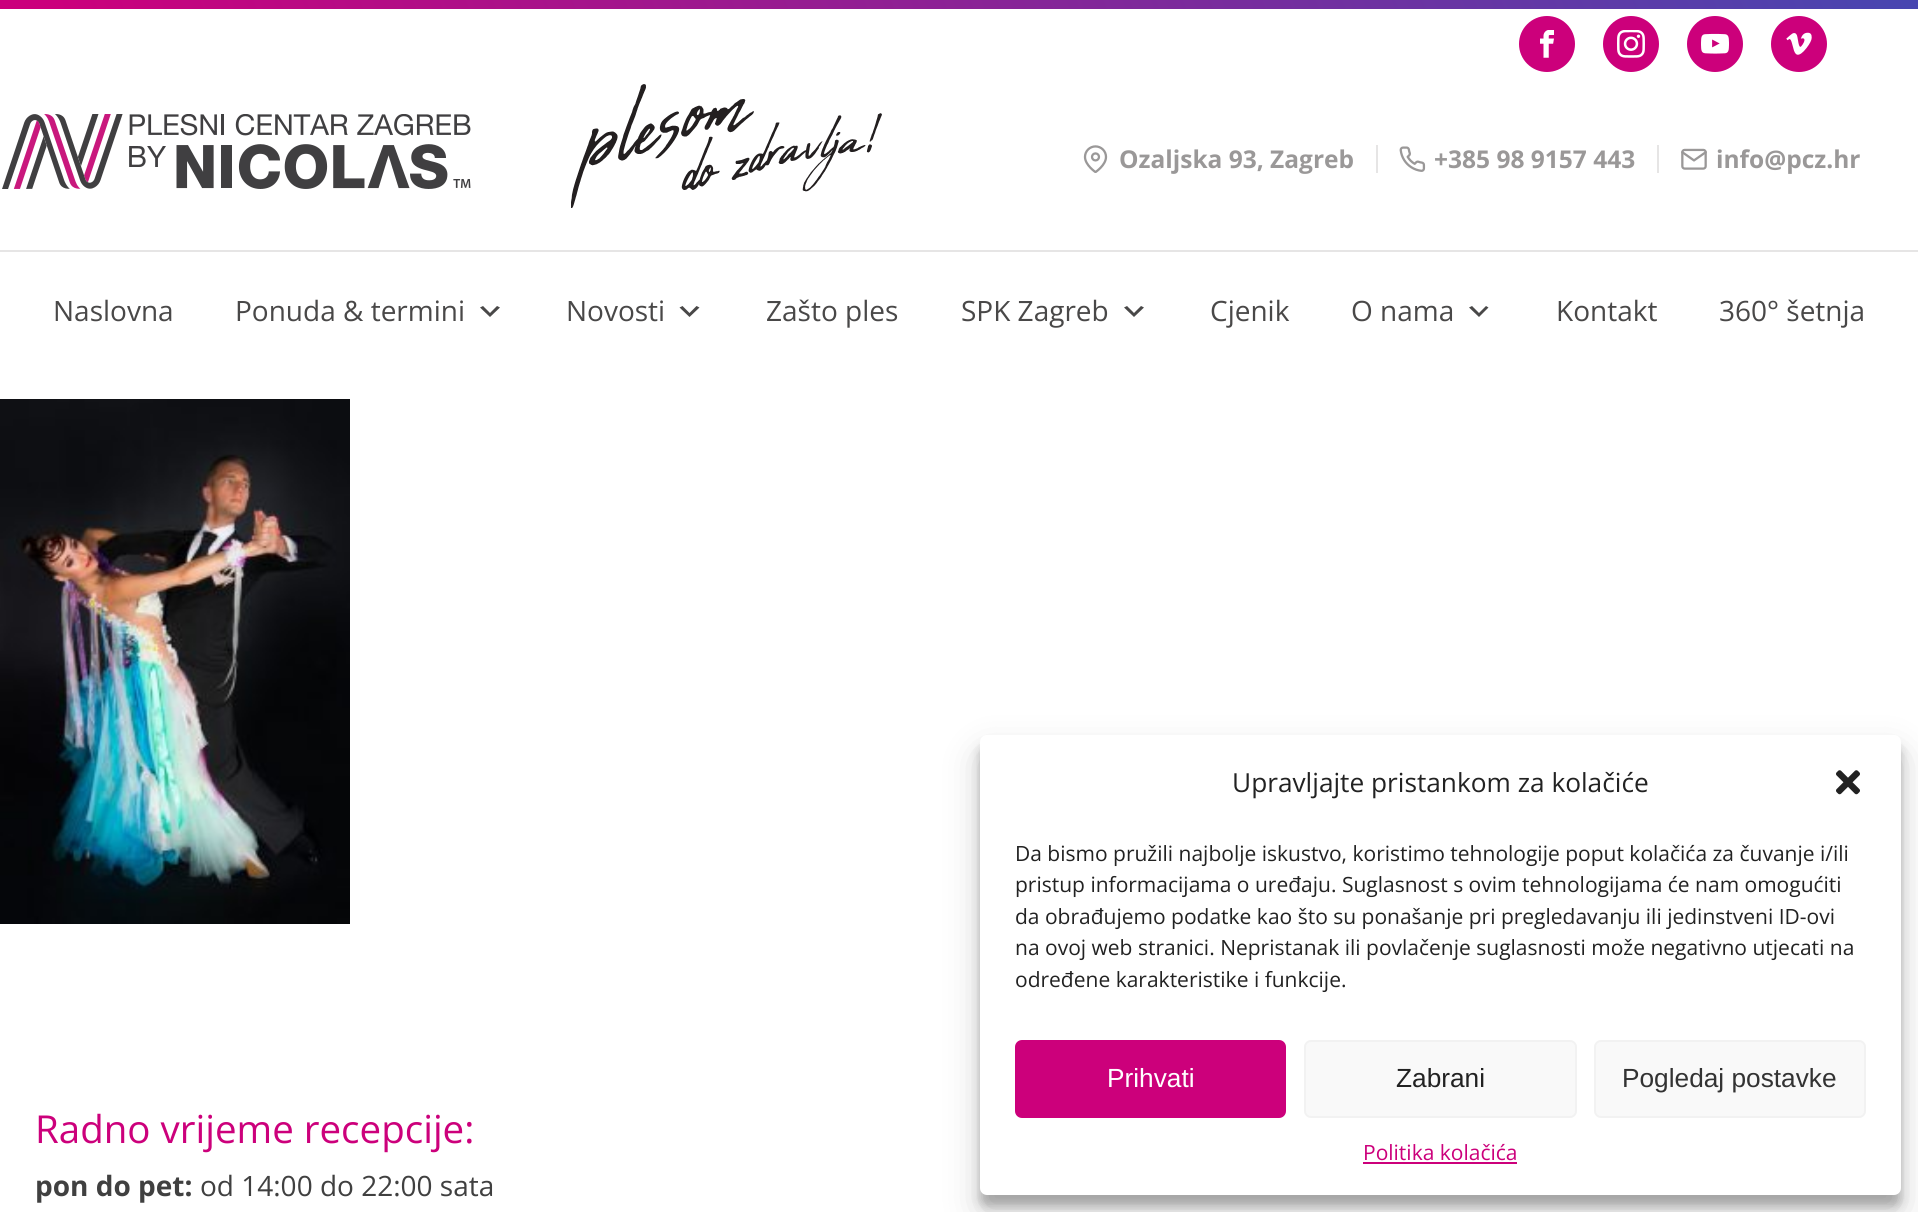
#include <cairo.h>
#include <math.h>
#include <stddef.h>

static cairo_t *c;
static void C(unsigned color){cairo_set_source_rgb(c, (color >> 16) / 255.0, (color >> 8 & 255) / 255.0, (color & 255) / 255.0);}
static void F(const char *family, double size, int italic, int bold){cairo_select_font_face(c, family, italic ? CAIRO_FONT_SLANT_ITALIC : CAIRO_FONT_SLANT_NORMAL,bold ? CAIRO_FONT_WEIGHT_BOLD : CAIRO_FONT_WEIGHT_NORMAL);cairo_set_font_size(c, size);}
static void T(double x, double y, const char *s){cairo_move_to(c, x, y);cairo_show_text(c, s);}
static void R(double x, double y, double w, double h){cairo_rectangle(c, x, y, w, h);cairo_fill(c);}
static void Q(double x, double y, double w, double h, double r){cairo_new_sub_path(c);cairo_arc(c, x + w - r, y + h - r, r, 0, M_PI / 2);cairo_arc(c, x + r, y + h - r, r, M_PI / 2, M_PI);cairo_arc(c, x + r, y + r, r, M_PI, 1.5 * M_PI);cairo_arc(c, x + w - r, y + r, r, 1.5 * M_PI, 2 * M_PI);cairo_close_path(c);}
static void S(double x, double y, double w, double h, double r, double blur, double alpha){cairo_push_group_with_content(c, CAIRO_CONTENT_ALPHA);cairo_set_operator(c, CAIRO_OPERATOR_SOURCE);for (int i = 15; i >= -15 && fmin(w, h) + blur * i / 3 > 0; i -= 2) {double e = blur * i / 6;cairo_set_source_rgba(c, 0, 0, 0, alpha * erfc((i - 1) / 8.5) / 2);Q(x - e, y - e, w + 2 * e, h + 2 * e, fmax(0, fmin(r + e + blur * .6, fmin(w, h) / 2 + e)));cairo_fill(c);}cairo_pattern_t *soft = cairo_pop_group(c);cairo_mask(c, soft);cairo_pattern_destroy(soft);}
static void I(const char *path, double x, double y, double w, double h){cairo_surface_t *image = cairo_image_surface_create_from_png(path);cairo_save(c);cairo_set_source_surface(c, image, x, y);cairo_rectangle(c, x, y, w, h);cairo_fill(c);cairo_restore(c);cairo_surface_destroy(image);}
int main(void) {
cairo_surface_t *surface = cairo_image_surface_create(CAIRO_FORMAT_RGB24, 1918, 1212);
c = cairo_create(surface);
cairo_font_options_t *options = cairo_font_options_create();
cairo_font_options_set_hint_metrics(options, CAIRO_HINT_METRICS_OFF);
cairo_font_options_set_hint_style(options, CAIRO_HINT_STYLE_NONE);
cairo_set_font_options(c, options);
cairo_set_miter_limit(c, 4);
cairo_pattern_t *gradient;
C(0xffffff);
cairo_paint(c);
gradient = cairo_pattern_create_linear(133,338,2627,-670);
cairo_pattern_add_color_stop_rgba(gradient,.02,0.796,0,0.486,1);
cairo_pattern_add_color_stop_rgba(gradient,1,0.008,0.42,0.8,1);
cairo_set_source(c,gradient);
cairo_pattern_destroy(gradient);
R(0,0,1918,9);
C(0xcc007b);
cairo_arc(c,1547,44,28,0,2 * M_PI);
cairo_fill(c);
I("1.png",1540,30,14,28);
cairo_arc(c,1631,44,28,0,2 * M_PI);
cairo_fill(c);
I("2.png",1617,30,28,28);
cairo_arc(c,1715,44,28,0,2 * M_PI);
cairo_fill(c);
I("3.png",1701,33,28,21);
cairo_arc(c,1799,44,28,0,2 * M_PI);
cairo_fill(c);
I("4.png",1786,32,26,23);
C(0xe6e5e5);
R(0,250,1918,2);
I("5.png",2,114,469,75);
I("6.png",571,84,311,124);
R(1376,145,2,28);
I("7.png",1083,145,25,28);
F("Open Sans",24.5,0,1);
C(0x9a9898);
T(1119,168,"Ozaljska 93, Zagreb");
C(0xe6e5e5);
R(1657,145,2,28);
I("8.png",1399,146,27,26);
C(0x9a9898);
T(1434,168,"+385 98 9157 443");
I("9.png",1681,148,26,22);
T(1716,168,"info@pcz.hr");
F("Open Sans",28,0,0);
C(0x494848);
T(53,321,"Naslovna");
T(235,321,"Ponuda & termini");
cairo_new_path(c);
cairo_move_to(c,483,306);
cairo_line_to(c,490,313);
cairo_line_to(c,497,306);
cairo_line_to(c,500,307.5);
cairo_line_to(c,490,317);
cairo_line_to(c,480,307.5);
cairo_close_path(c);
cairo_fill(c);
T(566,321,"Novosti");
cairo_new_path(c);
cairo_move_to(c,682.5,306);
cairo_line_to(c,689.5,313);
cairo_line_to(c,696.5,306);
cairo_line_to(c,699.5,307.5);
cairo_line_to(c,689.5,317);
cairo_line_to(c,679.5,307.5);
cairo_close_path(c);
cairo_fill(c);
T(766,321,"Zašto ples");
T(961,321,"SPK Zagreb");
cairo_new_path(c);
cairo_move_to(c,1127,306);
cairo_line_to(c,1134,313);
cairo_line_to(c,1141,306);
cairo_line_to(c,1144,307.5);
cairo_line_to(c,1134,317);
cairo_line_to(c,1124,307.5);
cairo_close_path(c);
cairo_fill(c);
T(1210,321,"Cjenik");
T(1351,321,"O nama");
cairo_new_path(c);
cairo_move_to(c,1472,306);
cairo_line_to(c,1479,313);
cairo_line_to(c,1486,306);
cairo_line_to(c,1488.5,307.5);
cairo_line_to(c,1479,317);
cairo_line_to(c,1469,307.5);
cairo_close_path(c);
cairo_fill(c);
T(1556,321,"Kontakt");
T(1719,321,"360° šetnja");
I("10.png",0,399,350,525);
F("Open Sans",38.5,0,0);
C(0xcc007b);
T(35,1143,"Radno vrijeme recepcije:");
F("Open Sans",28,0,1);
C(0x404040);
T(35,1196,"pon do pet:");
F("Open Sans",28,0,0);
T(200,1196,"od 14:00 do 22:00 sata");
C(0x000000);
S(980,746,921,460,7,5,.23);
S(980,753,921,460,7,17.5,.19);
C(0xffffff);
Q(980,735,921,460,7);
cairo_fill(c);
F("Open Sans",26.25,0,0);
C(0x222222);
T(1232,792,"Upravljajte pristankom za kolačiće");
I("11.png",1836,770,24,25);
F("Open Sans",21,0,0);
T(1015,861,"Da bismo pružili najbolje iskustvo, koristimo tehnologije poput kolačića za čuvanje i/ili");
T(1015,892,"pristup informacijama o uređaju. Suglasnost s ovim tehnologijama će nam omogućiti");
T(1015,924,"da obrađujemo podatke kao što su ponašanje pri pregledavanju ili jedinstveni ID-ovi");
T(1015,955,"na ovoj web stranici. Nepristanak ili povlačenje suglasnosti može negativno utjecati na");
T(1015,987,"određene karakteristike i funkcije.");
C(0xcc007b);
Q(1016,1041,269,76,6);
cairo_fill_preserve(c);
cairo_stroke(c);
F("Liberation Sans",26.25,0,0);
C(0xffffff);
T(1107,1087,"Prihvati");
C(0xf9f9f9);
Q(1305,1041,271,76,6);
cairo_fill_preserve(c);
C(0xf2f2f2);
cairo_stroke(c);
C(0x222222);
T(1396,1087,"Zabrani");
C(0xf9f9f9);
Q(1595,1041,270,76,6);
cairo_fill_preserve(c);
C(0xf2f2f2);
cairo_stroke(c);
C(0x333333);
T(1622,1087,"Pogledaj postavke");
F("Open Sans",21,0,0);
C(0xcc007b);
T(1363,1160,"Politika kolačića");
R(1363,1162,154,2);
cairo_surface_write_to_png(surface, "o.png");
cairo_font_options_destroy(options);
cairo_destroy(c);
cairo_surface_destroy(surface);
return 0;
}
